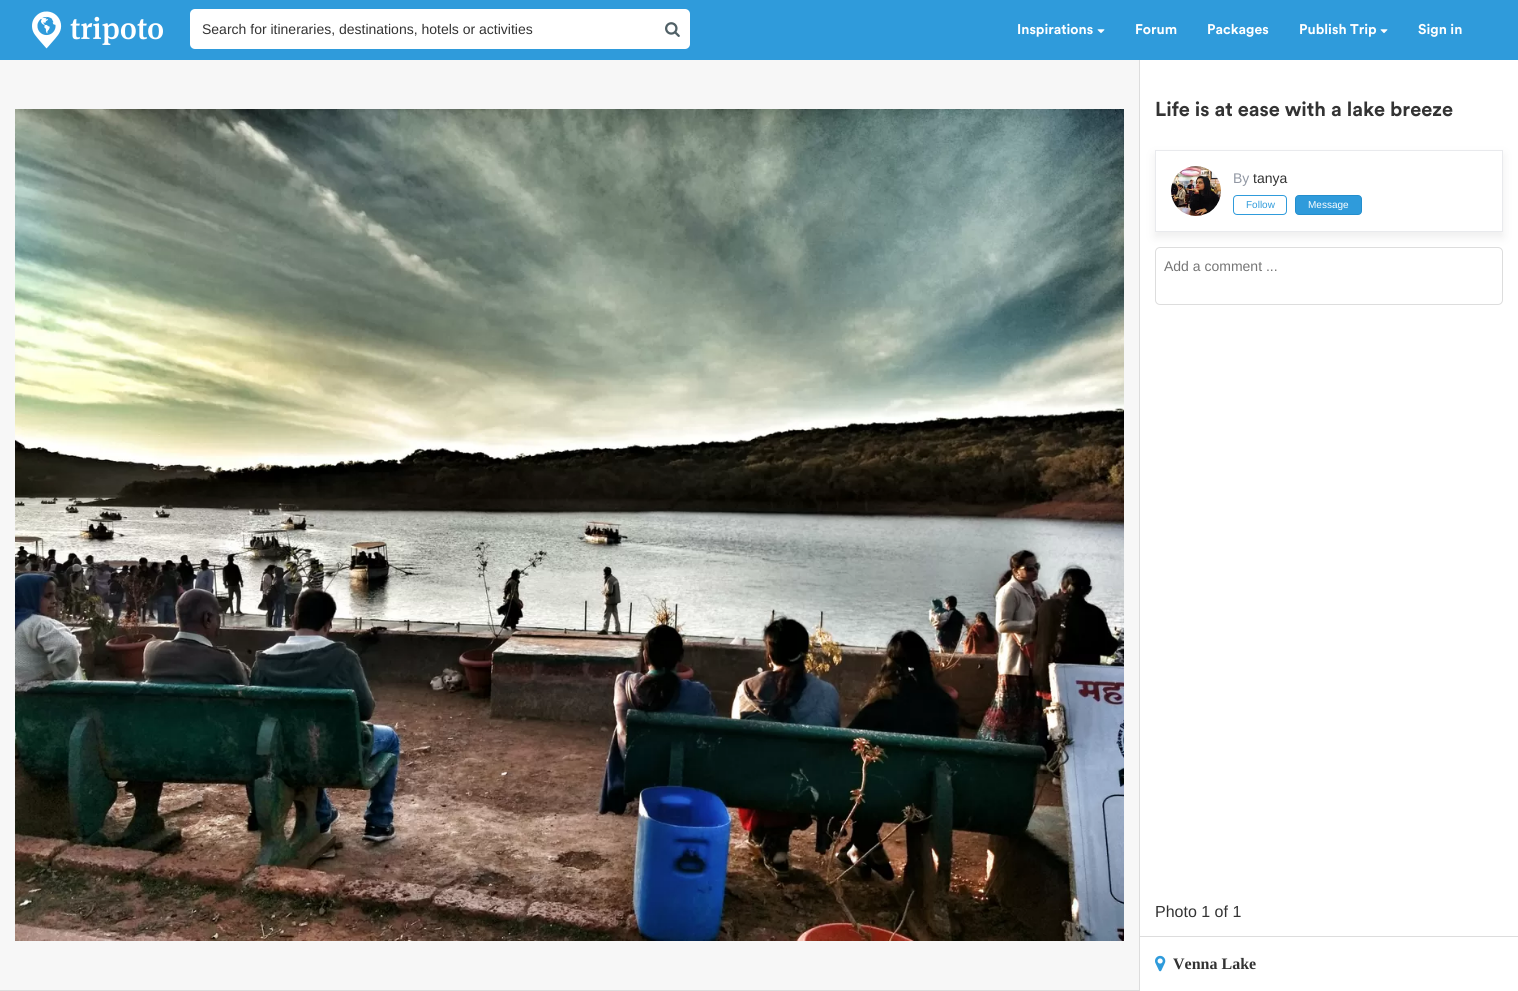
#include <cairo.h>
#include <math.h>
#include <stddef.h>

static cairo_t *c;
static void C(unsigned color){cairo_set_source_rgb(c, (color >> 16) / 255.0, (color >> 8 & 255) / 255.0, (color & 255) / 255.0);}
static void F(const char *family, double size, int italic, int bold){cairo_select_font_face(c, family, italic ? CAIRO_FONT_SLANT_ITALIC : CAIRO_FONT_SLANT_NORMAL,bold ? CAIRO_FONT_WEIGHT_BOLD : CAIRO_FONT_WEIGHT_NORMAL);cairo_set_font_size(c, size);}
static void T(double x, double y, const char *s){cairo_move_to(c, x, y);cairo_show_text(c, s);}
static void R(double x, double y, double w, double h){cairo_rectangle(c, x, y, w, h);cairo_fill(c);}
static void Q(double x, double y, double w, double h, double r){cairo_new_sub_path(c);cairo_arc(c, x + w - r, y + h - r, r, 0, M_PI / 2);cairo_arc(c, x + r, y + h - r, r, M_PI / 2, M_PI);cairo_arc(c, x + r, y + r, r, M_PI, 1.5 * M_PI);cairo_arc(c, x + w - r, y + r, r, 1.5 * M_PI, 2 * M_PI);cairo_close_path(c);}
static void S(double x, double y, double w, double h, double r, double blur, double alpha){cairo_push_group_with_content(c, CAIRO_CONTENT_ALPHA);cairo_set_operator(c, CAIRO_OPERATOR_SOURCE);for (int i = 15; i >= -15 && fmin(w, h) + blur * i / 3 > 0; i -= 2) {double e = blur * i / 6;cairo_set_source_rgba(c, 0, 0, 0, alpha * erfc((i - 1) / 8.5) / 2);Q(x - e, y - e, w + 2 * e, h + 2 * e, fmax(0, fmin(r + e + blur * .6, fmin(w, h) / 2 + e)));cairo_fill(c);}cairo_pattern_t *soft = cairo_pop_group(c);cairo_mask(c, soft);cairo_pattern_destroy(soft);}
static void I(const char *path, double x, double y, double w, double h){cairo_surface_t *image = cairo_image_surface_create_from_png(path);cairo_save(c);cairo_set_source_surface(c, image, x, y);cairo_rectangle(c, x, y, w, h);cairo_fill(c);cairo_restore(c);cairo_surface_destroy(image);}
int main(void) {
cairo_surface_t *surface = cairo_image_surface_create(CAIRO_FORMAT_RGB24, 1518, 991);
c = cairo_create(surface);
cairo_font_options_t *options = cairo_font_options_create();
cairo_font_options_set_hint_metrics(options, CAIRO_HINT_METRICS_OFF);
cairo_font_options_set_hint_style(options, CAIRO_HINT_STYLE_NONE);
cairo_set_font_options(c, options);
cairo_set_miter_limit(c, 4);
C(0xffffff);
cairo_paint(c);
C(0x2f9bdb);
R(0,0,1518,60);
I("1.png",32,11,131,38);
C(0xffffff);
Q(190,9,500,40,5);
cairo_fill(c);
F("Liberation Sans",14,0,0);
C(0x333333);
T(202,34,"Search for itineraries, destinations, hotels or activities");
I("2.png",665,22,15,15);
F("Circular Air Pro",14,0,1);
C(0xffffff);
T(1017,34,"Inspirations");
I("3.png",1097,29,8,5);
T(1135,34,"Forum");
T(1207,34,"Packages");
T(1299,34,"Publish Trip");
I("3.png",1380,29,8,5);
T(1418,34,"Sign in");
C(0xf7f7f7);
R(0,60,1139,930);
C(0xdddddd);
R(0,990,1139,1);
I("4.png",15,109,1109,832);
R(1139,60,1,931);
F("Circular Air Pro",20,0,1);
C(0x333333);
T(1155,116,"Life is at ease with a lake breeze");
cairo_save(c);
cairo_set_fill_rule(c,CAIRO_FILL_RULE_EVEN_ODD);
cairo_new_path(c);
cairo_move_to(c,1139,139);
cairo_line_to(c,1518,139);
cairo_line_to(c,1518,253);
cairo_line_to(c,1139,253);
cairo_close_path(c);
cairo_move_to(c,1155,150);
cairo_line_to(c,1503,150);
cairo_line_to(c,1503,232);
cairo_line_to(c,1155,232);
cairo_close_path(c);
cairo_clip(c);
C(0xdddddd);
S(1155,155,348,82,0,5,.5);
cairo_restore(c);
cairo_rectangle(c,1155.5,150.5,347,81);
C(0xe9eaed);
cairo_set_line_width(c,1);
cairo_stroke(c);
I("5.png",1171,166,50,50);
F("Liberation Sans",14,0,0);
C(0x9197a3);
T(1233,183,"By");
C(0x333333);
T(1253,183,"tanya");
Q(1233.5,195.5,53,19,3.5);
C(0x2f9bdb);
cairo_stroke(c);
F("Liberation Sans",10,0,0);
T(1246,208,"Follow");
Q(1295.5,195.5,66,19,3.5);
cairo_fill_preserve(c);
C(0x238ecd);
cairo_stroke(c);
C(0xffffff);
T(1308,208,"Message");
Q(1155.5,247.5,347,57,4.5);
C(0xdddddd);
cairo_stroke(c);
F("Liberation Sans",14,0,0);
C(0x757575);
T(1164,271,"Add a comment ...");
C(0xdddddd);
R(1140,936,378,1);
F("Liberation Sans",16,0,0);
C(0x333333);
T(1155,917,"Photo 1 of 1");
I("6.png",1155,955,11,17);
F("Liberation Serif",16,0,1);
T(1173,969,"Venna Lake");
cairo_surface_write_to_png(surface, "o.png");
cairo_font_options_destroy(options);
cairo_destroy(c);
cairo_surface_destroy(surface);
return 0;
}
